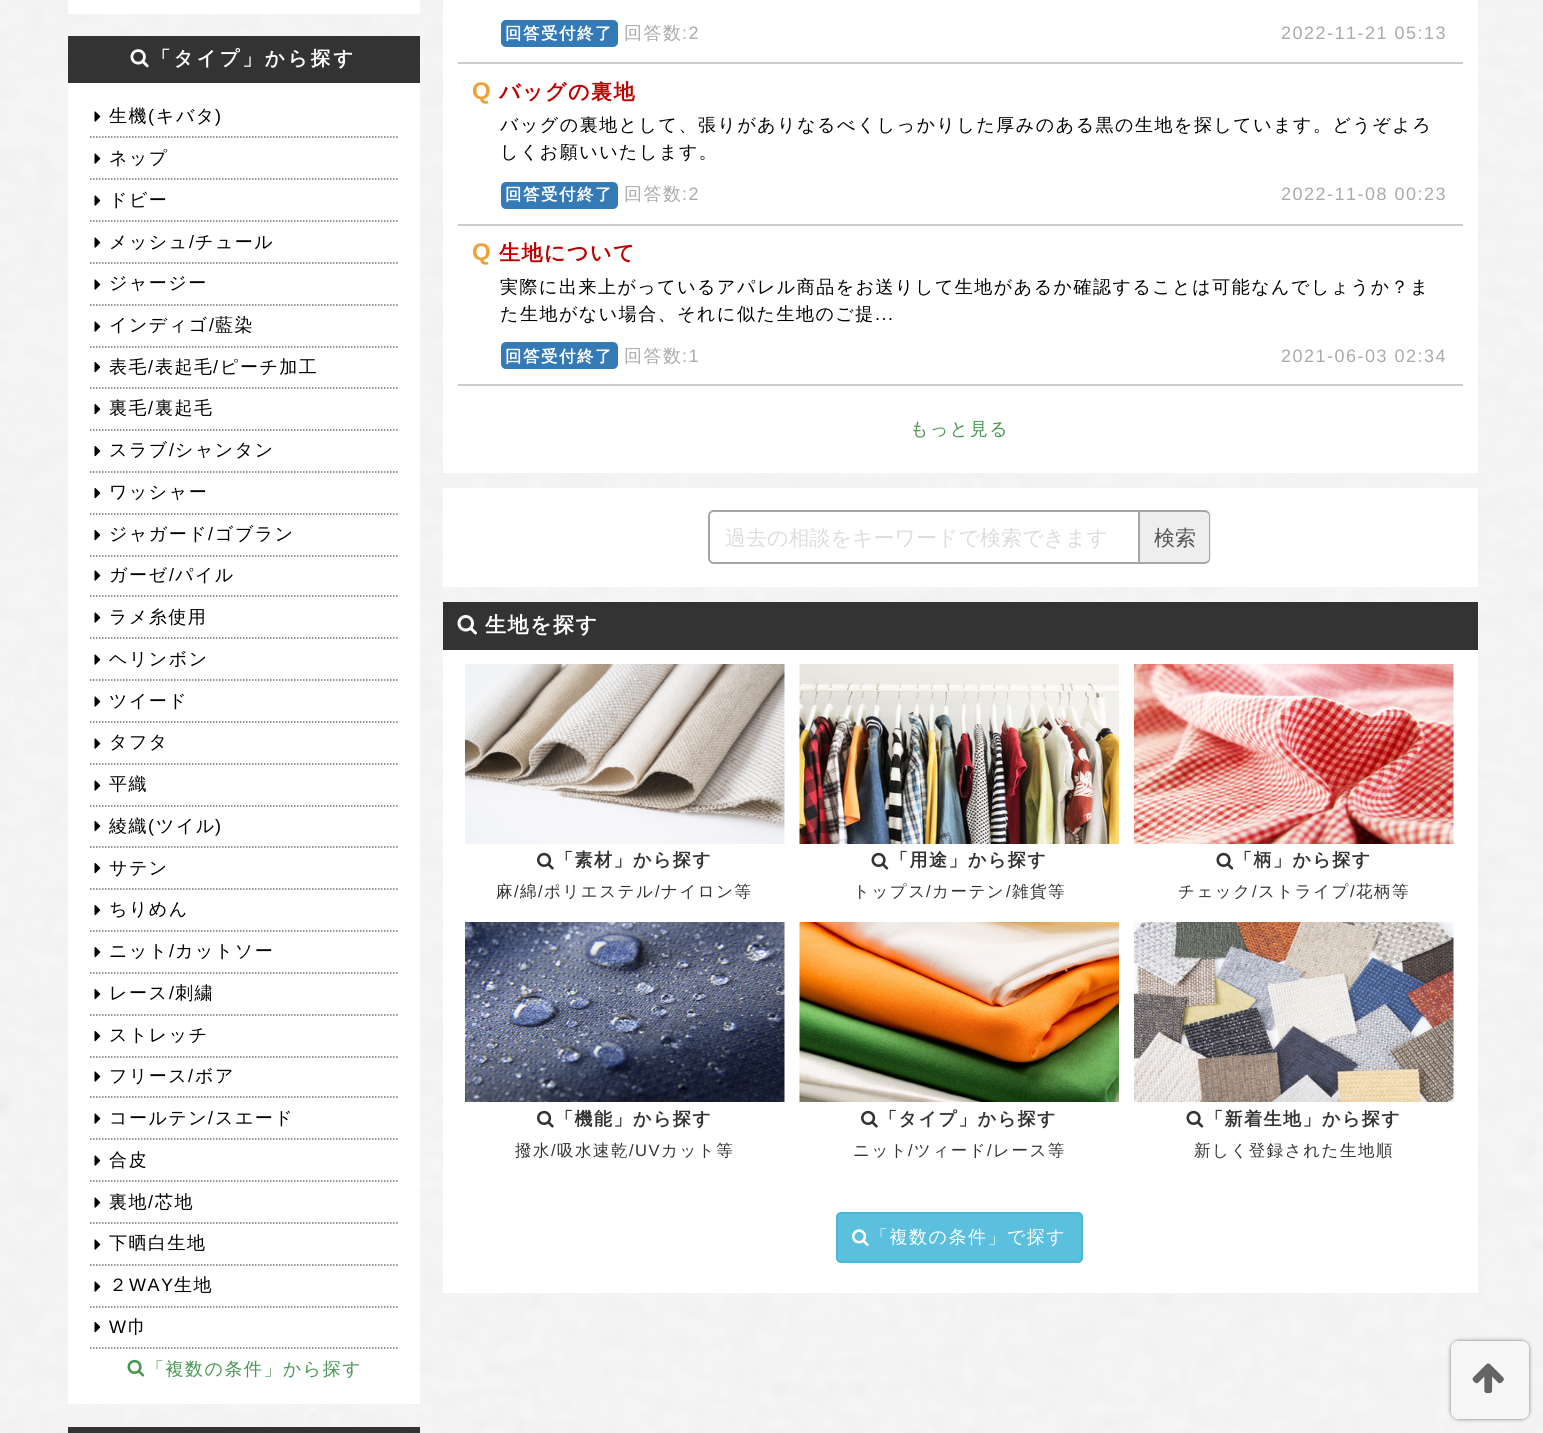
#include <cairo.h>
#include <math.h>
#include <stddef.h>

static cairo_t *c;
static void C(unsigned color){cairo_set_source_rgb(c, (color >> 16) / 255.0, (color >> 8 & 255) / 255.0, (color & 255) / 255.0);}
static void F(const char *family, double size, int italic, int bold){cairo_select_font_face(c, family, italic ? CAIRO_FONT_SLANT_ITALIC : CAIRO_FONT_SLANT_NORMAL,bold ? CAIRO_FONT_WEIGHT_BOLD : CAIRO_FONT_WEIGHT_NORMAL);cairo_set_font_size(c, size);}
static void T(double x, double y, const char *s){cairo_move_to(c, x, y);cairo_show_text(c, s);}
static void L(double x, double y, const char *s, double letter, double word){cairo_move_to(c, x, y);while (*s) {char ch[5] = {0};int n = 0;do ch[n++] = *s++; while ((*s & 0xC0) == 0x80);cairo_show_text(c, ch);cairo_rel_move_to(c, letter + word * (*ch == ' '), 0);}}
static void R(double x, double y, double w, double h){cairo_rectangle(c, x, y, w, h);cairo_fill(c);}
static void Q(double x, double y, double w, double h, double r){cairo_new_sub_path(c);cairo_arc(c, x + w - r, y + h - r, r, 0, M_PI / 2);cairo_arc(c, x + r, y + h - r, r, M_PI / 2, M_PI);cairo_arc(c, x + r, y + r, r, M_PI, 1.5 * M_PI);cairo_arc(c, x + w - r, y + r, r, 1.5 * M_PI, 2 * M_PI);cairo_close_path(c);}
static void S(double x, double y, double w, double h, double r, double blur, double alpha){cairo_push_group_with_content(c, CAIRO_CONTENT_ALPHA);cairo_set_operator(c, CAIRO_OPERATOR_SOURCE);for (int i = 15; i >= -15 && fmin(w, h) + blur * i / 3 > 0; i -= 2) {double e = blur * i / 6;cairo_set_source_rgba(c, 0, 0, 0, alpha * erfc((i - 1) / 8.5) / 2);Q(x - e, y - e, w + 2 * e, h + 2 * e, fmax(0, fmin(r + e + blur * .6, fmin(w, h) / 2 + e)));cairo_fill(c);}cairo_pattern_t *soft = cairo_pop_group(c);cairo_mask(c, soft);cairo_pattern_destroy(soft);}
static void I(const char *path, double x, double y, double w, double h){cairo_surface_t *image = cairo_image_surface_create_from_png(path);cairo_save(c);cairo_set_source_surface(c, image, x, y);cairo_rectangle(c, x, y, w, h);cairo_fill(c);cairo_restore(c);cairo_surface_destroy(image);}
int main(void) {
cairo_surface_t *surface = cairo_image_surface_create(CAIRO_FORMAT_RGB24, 1543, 1433);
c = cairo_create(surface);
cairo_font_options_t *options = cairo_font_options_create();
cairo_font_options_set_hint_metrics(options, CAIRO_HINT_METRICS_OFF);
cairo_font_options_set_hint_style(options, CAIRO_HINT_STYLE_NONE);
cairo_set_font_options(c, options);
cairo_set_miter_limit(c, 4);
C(0xffffff);
cairo_paint(c);
I("1.png",0,0,1543,1433);
C(0xffffff);
R(68,0,352,14);
R(68,83,352,1321);
C(0x333333);
R(68,36,352,47);
I("2.png",130,49,19,19);
F("WenQuanYi Zen Hei",19.5,0,1);
C(0xffffff);
L(151,65,"「タイプ」から探す",3,0);
cairo_new_path(c);
cairo_move_to(c,90,137);
cairo_line_to(c,397.5,137);
C(0x717171);
cairo_set_line_width(c,1.5);
cairo_set_dash(c,(double[]){1.5,1.5},2,0);
cairo_stroke(c);
I("3.png",94,111,7,11);
F("WenQuanYi Zen Hei Medium",18,0,0);
C(0x000000);
L(109,122,"生機",1.5,0);
F("Liberation Sans",18,0,0);
L(148,122,"(",1.5,0);
F("WenQuanYi Zen Hei Medium",18,0,0);
L(156,122,"キバタ",1.5,0);
F("Liberation Sans",18,0,0);
L(215,122,")",1.5,0);
cairo_new_path(c);
cairo_move_to(c,90,179);
cairo_line_to(c,397.5,179);
C(0x717171);
cairo_stroke(c);
I("3.png",94,153,7,11);
F("WenQuanYi Zen Hei Medium",18,0,0);
C(0x000000);
L(109,164,"ネップ",1.5,0);
cairo_new_path(c);
cairo_move_to(c,90,221);
cairo_line_to(c,397.5,221);
C(0x717171);
cairo_stroke(c);
I("3.png",94,195,7,11);
C(0x000000);
L(109,206,"ドビー",1.5,0);
cairo_new_path(c);
cairo_move_to(c,90,263);
cairo_line_to(c,397.5,263);
C(0x717171);
cairo_stroke(c);
I("3.png",94,237,7,11);
C(0x000000);
L(109,248,"メッシュ",1.5,0);
F("Liberation Sans",18,0,0);
L(189,248,"/",1.5,0);
F("WenQuanYi Zen Hei Medium",18,0,0);
L(195,248,"チュール",1.5,0);
cairo_new_path(c);
cairo_move_to(c,90,305);
cairo_line_to(c,397.5,305);
C(0x717171);
cairo_stroke(c);
I("3.png",94,279,7,11);
C(0x000000);
L(109,289,"ジャージー",1.5,0);
cairo_new_path(c);
cairo_move_to(c,90,347);
cairo_line_to(c,397.5,347);
C(0x717171);
cairo_stroke(c);
I("3.png",94,321,7,11);
C(0x000000);
L(109,331,"インディゴ",1.5,0);
F("Liberation Sans",18,0,0);
L(209,331,"/",1.5,0);
F("WenQuanYi Zen Hei Medium",18,0,0);
L(215,331,"藍染",1.5,0);
cairo_new_path(c);
cairo_move_to(c,90,388);
cairo_line_to(c,397.5,388);
C(0x717171);
cairo_stroke(c);
I("4.png",94,362,7,11);
C(0x000000);
L(109,373,"表毛",1.5,0);
F("Liberation Sans",18,0,0);
L(148,373,"/",1.5,0);
F("WenQuanYi Zen Hei Medium",18,0,0);
L(155,373,"表起毛",1.5,0);
F("Liberation Sans",18,0,0);
L(213,373,"/",1.5,0);
F("WenQuanYi Zen Hei Medium",18,0,0);
L(220,373,"ピーチ加工",1.5,0);
cairo_new_path(c);
cairo_move_to(c,90,430);
cairo_line_to(c,397.5,430);
C(0x717171);
cairo_stroke(c);
I("4.png",94,404,7,11);
C(0x000000);
L(109,414,"裏毛",1.5,0);
F("Liberation Sans",18,0,0);
L(148,414,"/",1.5,0);
F("WenQuanYi Zen Hei Medium",18,0,0);
L(155,414,"裏起毛",1.5,0);
cairo_new_path(c);
cairo_move_to(c,90,472);
cairo_line_to(c,397.5,472);
C(0x717171);
cairo_stroke(c);
I("4.png",94,446,7,11);
C(0x000000);
L(109,456,"スラブ",1.5,0);
F("Liberation Sans",18,0,0);
L(169,456,"/",1.5,0);
F("WenQuanYi Zen Hei Medium",18,0,0);
L(175,456,"シャンタン",1.5,0);
cairo_new_path(c);
cairo_move_to(c,90,514);
cairo_line_to(c,397.5,514);
C(0x717171);
cairo_stroke(c);
I("4.png",94,488,7,11);
C(0x000000);
L(109,498,"ワッシャー",1.5,0);
cairo_new_path(c);
cairo_move_to(c,90,556);
cairo_line_to(c,397.5,556);
C(0x717171);
cairo_stroke(c);
I("4.png",94,530,7,11);
C(0x000000);
L(109,540,"ジャガード",1.5,0);
F("Liberation Sans",18,0,0);
L(208,540,"/",1.5,0);
F("WenQuanYi Zen Hei Medium",18,0,0);
L(215,540,"ゴブラン",1.5,0);
cairo_new_path(c);
cairo_move_to(c,90,596);
cairo_line_to(c,397.5,596);
C(0x717171);
cairo_stroke(c);
I("3.png",94,570,7,11);
C(0x000000);
L(109,581,"ガーゼ",1.5,0);
F("Liberation Sans",18,0,0);
L(169,581,"/",1.5,0);
F("WenQuanYi Zen Hei Medium",18,0,0);
L(175,581,"パイル",1.5,0);
cairo_new_path(c);
cairo_move_to(c,90,638);
cairo_line_to(c,397.5,638);
C(0x717171);
cairo_stroke(c);
I("3.png",94,612,7,11);
C(0x000000);
L(109,623,"ラメ糸使用",1.5,0);
cairo_new_path(c);
cairo_move_to(c,90,680);
cairo_line_to(c,397.5,680);
C(0x717171);
cairo_stroke(c);
I("3.png",94,654,7,11);
C(0x000000);
L(109,665,"ヘリンボン",1.5,0);
cairo_new_path(c);
cairo_move_to(c,90,722);
cairo_line_to(c,397.5,722);
C(0x717171);
cairo_stroke(c);
I("3.png",94,696,7,11);
C(0x000000);
L(109,707,"ツイード",1.5,0);
cairo_new_path(c);
cairo_move_to(c,90,764);
cairo_line_to(c,397.5,764);
C(0x717171);
cairo_stroke(c);
I("3.png",94,738,7,11);
C(0x000000);
L(109,748,"タフタ",1.5,0);
cairo_new_path(c);
cairo_move_to(c,90,806);
cairo_line_to(c,397.5,806);
C(0x717171);
cairo_stroke(c);
I("3.png",94,780,7,11);
C(0x000000);
L(109,790,"平織",1.5,0);
cairo_new_path(c);
cairo_move_to(c,90,847);
cairo_line_to(c,397.5,847);
C(0x717171);
cairo_stroke(c);
I("4.png",94,821,7,11);
C(0x000000);
L(109,832,"綾織",1.5,0);
F("Liberation Sans",18,0,0);
L(148,832,"(",1.5,0);
F("WenQuanYi Zen Hei Medium",18,0,0);
L(156,832,"ツイル",1.5,0);
F("Liberation Sans",18,0,0);
L(215,832,")",1.5,0);
cairo_new_path(c);
cairo_move_to(c,90,889);
cairo_line_to(c,397.5,889);
C(0x717171);
cairo_stroke(c);
I("4.png",94,863,7,11);
F("WenQuanYi Zen Hei Medium",18,0,0);
C(0x000000);
L(109,874,"サテン",1.5,0);
cairo_new_path(c);
cairo_move_to(c,90,931);
cairo_line_to(c,397.5,931);
C(0x717171);
cairo_stroke(c);
I("4.png",94,905,7,11);
C(0x000000);
L(109,915,"ちりめん",1.5,0);
cairo_new_path(c);
cairo_move_to(c,90,973);
cairo_line_to(c,397.5,973);
C(0x717171);
cairo_stroke(c);
I("4.png",94,947,7,11);
C(0x000000);
L(109,957,"ニット",1.5,0);
F("Liberation Sans",18,0,0);
L(169,957,"/",1.5,0);
F("WenQuanYi Zen Hei Medium",18,0,0);
L(175,957,"カットソー",1.5,0);
cairo_new_path(c);
cairo_move_to(c,90,1015);
cairo_line_to(c,397.5,1015);
C(0x717171);
cairo_stroke(c);
I("4.png",94,989,7,11);
C(0x000000);
L(109,999,"レース",1.5,0);
F("Liberation Sans",18,0,0);
L(169,999,"/",1.5,0);
F("WenQuanYi Zen Hei Medium",18,0,0);
L(175,999,"刺繍",1.5,0);
cairo_new_path(c);
cairo_move_to(c,90,1057);
cairo_line_to(c,397.5,1057);
C(0x717171);
cairo_stroke(c);
I("4.png",94,1031,7,11);
C(0x000000);
L(109,1041,"ストレッチ",1.5,0);
cairo_new_path(c);
cairo_move_to(c,90,1097);
cairo_line_to(c,397.5,1097);
C(0x717171);
cairo_stroke(c);
I("3.png",94,1071,7,11);
C(0x000000);
L(109,1082,"フリース",1.5,0);
F("Liberation Sans",18,0,0);
L(188,1082,"/",1.5,0);
F("WenQuanYi Zen Hei Medium",18,0,0);
L(195,1082,"ボア",1.5,0);
cairo_new_path(c);
cairo_move_to(c,90,1139);
cairo_line_to(c,397.5,1139);
C(0x717171);
cairo_stroke(c);
I("3.png",94,1113,7,11);
C(0x000000);
L(109,1124,"コールテン",1.5,0);
F("Liberation Sans",18,0,0);
L(208,1124,"/",1.5,0);
F("WenQuanYi Zen Hei Medium",18,0,0);
L(215,1124,"スエード",1.5,0);
cairo_new_path(c);
cairo_move_to(c,90,1181);
cairo_line_to(c,397.5,1181);
C(0x717171);
cairo_stroke(c);
I("3.png",94,1155,7,11);
C(0x000000);
L(109,1166,"合皮",1.5,0);
cairo_new_path(c);
cairo_move_to(c,90,1223);
cairo_line_to(c,397.5,1223);
C(0x717171);
cairo_stroke(c);
I("3.png",94,1197,7,11);
C(0x000000);
L(109,1208,"裏地",1.5,0);
F("Liberation Sans",18,0,0);
L(148,1208,"/",1.5,0);
F("WenQuanYi Zen Hei Medium",18,0,0);
L(155,1208,"芯地",1.5,0);
cairo_new_path(c);
cairo_move_to(c,90,1265);
cairo_line_to(c,397.5,1265);
C(0x717171);
cairo_stroke(c);
I("3.png",94,1239,7,11);
C(0x000000);
L(109,1249,"下晒白生地",1.5,0);
cairo_new_path(c);
cairo_move_to(c,90,1307);
cairo_line_to(c,397.5,1307);
C(0x717171);
cairo_stroke(c);
I("3.png",94,1281,7,11);
C(0x000000);
L(109,1291,"２",1.5,0);
F("Liberation Sans",18,0,0);
L(129,1291,"WAY",1.5,0);
F("WenQuanYi Zen Hei Medium",18,0,0);
L(174,1291,"生地",1.5,0);
cairo_new_path(c);
cairo_move_to(c,90,1348);
cairo_line_to(c,397.5,1348);
C(0x717171);
cairo_stroke(c);
I("4.png",94,1322,7,11);
F("Liberation Sans",18,0,0);
C(0x000000);
L(109,1333,"W",1.5,0);
F("WenQuanYi Zen Hei Medium",18,0,0);
L(128,1333,"巾",1.5,0);
I("5.png",127,1359,18,18);
C(0x469650);
L(146,1375,"「複数の条件」から探す",1.5,0);
C(0x333333);
R(68,1427,352,6);
C(0xffffff);
R(443,0,1035,473);
C(0xcccccc);
R(458,62,1005,2);
C(0x337ab7);
Q(501,20,117,27,5);
cairo_fill(c);
F("WenQuanYi Zen Hei",16.5,0,1);
C(0xffffff);
L(505,39,"回答受付終了",1.5,0);
F("WenQuanYi Zen Hei Medium",18,0,0);
C(0xaaaaaa);
L(624,39,"回答数",1.5,0);
F("Liberation Sans",18,0,0);
L(682,39,":2",1.5,0);
L(1281,39,"2022-11-21 05:13",1.5,0);
C(0xcccccc);
R(458,224,1005,2);
F("Liberation Sans",24,0,1);
C(0xeea236);
L(472,99,"Q",1.5,0);
F("WenQuanYi Zen Hei",21,0,1);
C(0xbf0000);
L(499,99,"バッグの裏地",1.5,0);
F("WenQuanYi Zen Hei Medium",18,0,0);
C(0x000000);
L(500,131,"バッグの裏地として、張りがありなるべくしっかりした厚みのある黒の生地を探しています。どうぞよろ",1.5,0);
L(500,158,"しくお願いいたします。",1.5,0);
C(0x337ab7);
Q(501,182,117,27,5);
cairo_fill(c);
F("WenQuanYi Zen Hei",16.5,0,1);
C(0xffffff);
L(505,200,"回答受付終了",1.5,0);
F("WenQuanYi Zen Hei Medium",18,0,0);
C(0xaaaaaa);
L(624,200,"回答数",1.5,0);
F("Liberation Sans",18,0,0);
L(682,200,":2",1.5,0);
L(1281,200,"2022-11-08 00:23",1.5,0);
C(0xcccccc);
R(458,384,1005,2);
F("Liberation Sans",24,0,1);
C(0xeea236);
L(472,260,"Q",1.5,0);
F("WenQuanYi Zen Hei",21,0,1);
C(0xbf0000);
L(499,260,"生地について",1.5,0);
F("WenQuanYi Zen Hei Medium",18,0,0);
C(0x000000);
L(500,293,"実際に出来上がっているアパレル商品をお送りして生地があるか確認することは可能なんでしょうか？ま",1.5,0);
L(500,320,"た生地がない場合、それに似た生地のご提",1.5,0);
F("Liberation Sans",18,0,0);
L(875,320,"...",1.5,0);
C(0x337ab7);
Q(501,342,117,27,5);
cairo_fill(c);
F("WenQuanYi Zen Hei",16.5,0,1);
C(0xffffff);
L(505,362,"回答受付終了",1.5,0);
F("WenQuanYi Zen Hei Medium",18,0,0);
C(0xaaaaaa);
L(624,362,"回答数",1.5,0);
F("Liberation Sans",18,0,0);
L(682,362,":1",1.5,0);
L(1281,362,"2021-06-03 02:34",1.5,0);
F("WenQuanYi Zen Hei Medium",18,0,0);
C(0x469650);
L(910,435,"もっと見る",1.5,0);
C(0xffffff);
R(443,488,1035,99);
cairo_new_path(c);
cairo_move_to(c,714,511);
cairo_line_to(c,1139,511);
cairo_line_to(c,1139,563);
cairo_line_to(c,714,563);
cairo_curve_to(c,711,563,709,561,709,558);
cairo_line_to(c,709,516);
cairo_curve_to(c,709,513,711,511,714,511);
cairo_close_path(c);
C(0xa6a6a6);
cairo_set_line_width(c,2);
cairo_set_dash(c,NULL,0,0);
cairo_stroke(c);
F("WenQuanYi Zen Hei Medium",21,0,0);
C(0xdddddd);
T(725,545,"過去の相談をキーワードで検索できます");
C(0xeeeeee);
cairo_new_path(c);
cairo_move_to(c,1140,510);
cairo_line_to(c,1205,510);
cairo_curve_to(c,1208.5,510,1211,512.5,1211,516);
cairo_line_to(c,1211,558);
cairo_curve_to(c,1211,561.5,1208.5,564,1205,564);
cairo_line_to(c,1140,564);
cairo_close_path(c);
cairo_fill(c);
C(0xa6a6a6);
cairo_set_fill_rule(c,CAIRO_FILL_RULE_EVEN_ODD);
cairo_new_path(c);
cairo_move_to(c,1140,510);
cairo_line_to(c,1204,510);
cairo_curve_to(c,1208,510,1210,513,1210,516);
cairo_line_to(c,1210,558);
cairo_curve_to(c,1210,561,1208,564,1204,564);
cairo_line_to(c,1140,564);
cairo_close_path(c);
cairo_move_to(c,1140,512);
cairo_line_to(c,1204,512);
cairo_curve_to(c,1207,512,1209,514,1209,516);
cairo_line_to(c,1209,558);
cairo_curve_to(c,1209,560,1207,562,1204,562);
cairo_line_to(c,1140,562);
cairo_close_path(c);
cairo_fill(c);
C(0x555555);
T(1154,545,"検索");
C(0xffffff);
R(443,650,1035,643);
C(0x333333);
R(443,602,1035,48);
I("6.png",457,615,20,20);
F("WenQuanYi Zen Hei",21,0,1);
C(0xffffff);
L(485,632,"生地を探す",1.5,0);
I("7.png",465,664,320,180);
I("8.png",537,852,17,18);
F("WenQuanYi Zen Hei",18,0,1);
C(0x333333);
L(555,866,"「素材」から探す",1.5,0);
F("WenQuanYi Zen Hei Medium",16.5,0,0);
L(496,897,"麻",1.5,0);
F("Liberation Sans",16.5,0,0);
L(514,897,"/",1.5,0);
F("WenQuanYi Zen Hei Medium",16.5,0,0);
L(520,897,"綿",1.5,0);
F("Liberation Sans",16.5,0,0);
L(538,897,"/",1.5,0);
F("WenQuanYi Zen Hei Medium",16.5,0,0);
L(544,897,"ポリエステル",1.5,0);
F("Liberation Sans",16.5,0,0);
L(655,897,"/",1.5,0);
F("WenQuanYi Zen Hei Medium",16.5,0,0);
L(661,897,"ナイロン等",1.5,0);
I("9.png",799,664,320,180);
I("10.png",871,852,18,18);
F("WenQuanYi Zen Hei",18,0,1);
L(890,866,"「用途」から探す",1.5,0);
F("WenQuanYi Zen Hei Medium",16.5,0,0);
L(853,897,"トップス",1.5,0);
F("Liberation Sans",16.5,0,0);
L(926,897,"/",1.5,0);
F("WenQuanYi Zen Hei Medium",16.5,0,0);
L(932,897,"カーテン",1.5,0);
F("Liberation Sans",16.5,0,0);
L(1006,897,"/",1.5,0);
F("WenQuanYi Zen Hei Medium",16.5,0,0);
L(1012,897,"雑貨等",1.5,0);
I("11.png",1134,664,320,180);
I("10.png",1216,852,18,18);
F("WenQuanYi Zen Hei",18,0,1);
L(1234,866,"「柄」から探す",1.5,0);
F("WenQuanYi Zen Hei Medium",16.5,0,0);
L(1178,897,"チェック",1.5,0);
F("Liberation Sans",16.5,0,0);
L(1252,897,"/",1.5,0);
F("WenQuanYi Zen Hei Medium",16.5,0,0);
L(1258,897,"ストライプ",1.5,0);
F("Liberation Sans",16.5,0,0);
L(1350,897,"/",1.5,0);
F("WenQuanYi Zen Hei Medium",16.5,0,0);
L(1356,897,"花柄等",1.5,0);
I("12.png",465,922,320,180);
I("8.png",537,1110,17,18);
F("WenQuanYi Zen Hei",18,0,1);
L(555,1125,"「機能」から探す",1.5,0);
F("WenQuanYi Zen Hei Medium",16.5,0,0);
L(515,1156,"撥水",1.5,0);
F("Liberation Sans",16.5,0,0);
L(551,1156,"/",1.5,0);
F("WenQuanYi Zen Hei Medium",16.5,0,0);
L(557,1156,"吸水速乾",1.5,0);
F("Liberation Sans",16.5,0,0);
L(629,1156,"/UV",1.5,0);
F("WenQuanYi Zen Hei Medium",16.5,0,0);
L(661,1156,"カット等",1.5,0);
I("13.png",799,922,320,180);
I("8.png",861,1110,17,18);
F("WenQuanYi Zen Hei",18,0,1);
L(879,1125,"「タイプ」から探す",1.5,0);
F("WenQuanYi Zen Hei Medium",16.5,0,0);
L(853,1156,"ニット",1.5,0);
F("Liberation Sans",16.5,0,0);
L(908,1156,"/",1.5,0);
F("WenQuanYi Zen Hei Medium",16.5,0,0);
L(914,1156,"ツィード",1.5,0);
F("Liberation Sans",16.5,0,0);
L(987,1156,"/",1.5,0);
F("WenQuanYi Zen Hei Medium",16.5,0,0);
L(993,1156,"レース等",1.5,0);
I("14.png",1134,922,320,180);
I("10.png",1186,1110,18,18);
F("WenQuanYi Zen Hei",18,0,1);
L(1205,1125,"「新着生地」から探す",1.5,0);
F("WenQuanYi Zen Hei Medium",16.5,0,0);
L(1194,1156,"新しく登録された生地順",1.5,0);
C(0x5bc0de);
Q(837,1213,245,49,4);
cairo_fill_preserve(c);
C(0x46b8da);
cairo_stroke(c);
I("15.png",852,1229,17,17);
F("WenQuanYi Zen Hei Medium",18,0,0);
C(0xffffff);
L(870,1243,"「複数の条件」で探す",1.5,0);
cairo_save(c);
cairo_new_path(c);
cairo_move_to(c,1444,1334);
cairo_line_to(c,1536,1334);
cairo_line_to(c,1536,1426);
cairo_line_to(c,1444,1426);
cairo_close_path(c);
cairo_move_to(c,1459,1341);
cairo_line_to(c,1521,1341);
cairo_curve_to(c,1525.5,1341,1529,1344.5,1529,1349);
cairo_line_to(c,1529,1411);
cairo_curve_to(c,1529,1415.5,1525.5,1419,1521,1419);
cairo_line_to(c,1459,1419);
cairo_curve_to(c,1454.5,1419,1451,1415.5,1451,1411);
cairo_line_to(c,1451,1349);
cairo_curve_to(c,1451,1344.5,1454.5,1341,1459,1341);
cairo_close_path(c);
cairo_clip(c);
C(0x000000);
S(1451,1341,78,78,8,2,.52);
cairo_restore(c);
cairo_set_source_rgba(c,0.965,0.965,0.965,0.75);
Q(1451,1341,78,78,8);
cairo_fill(c);
I("16.png",1472,1363,32,31);
cairo_surface_write_to_png(surface, "o.png");
cairo_font_options_destroy(options);
cairo_destroy(c);
cairo_surface_destroy(surface);
return 0;
}
